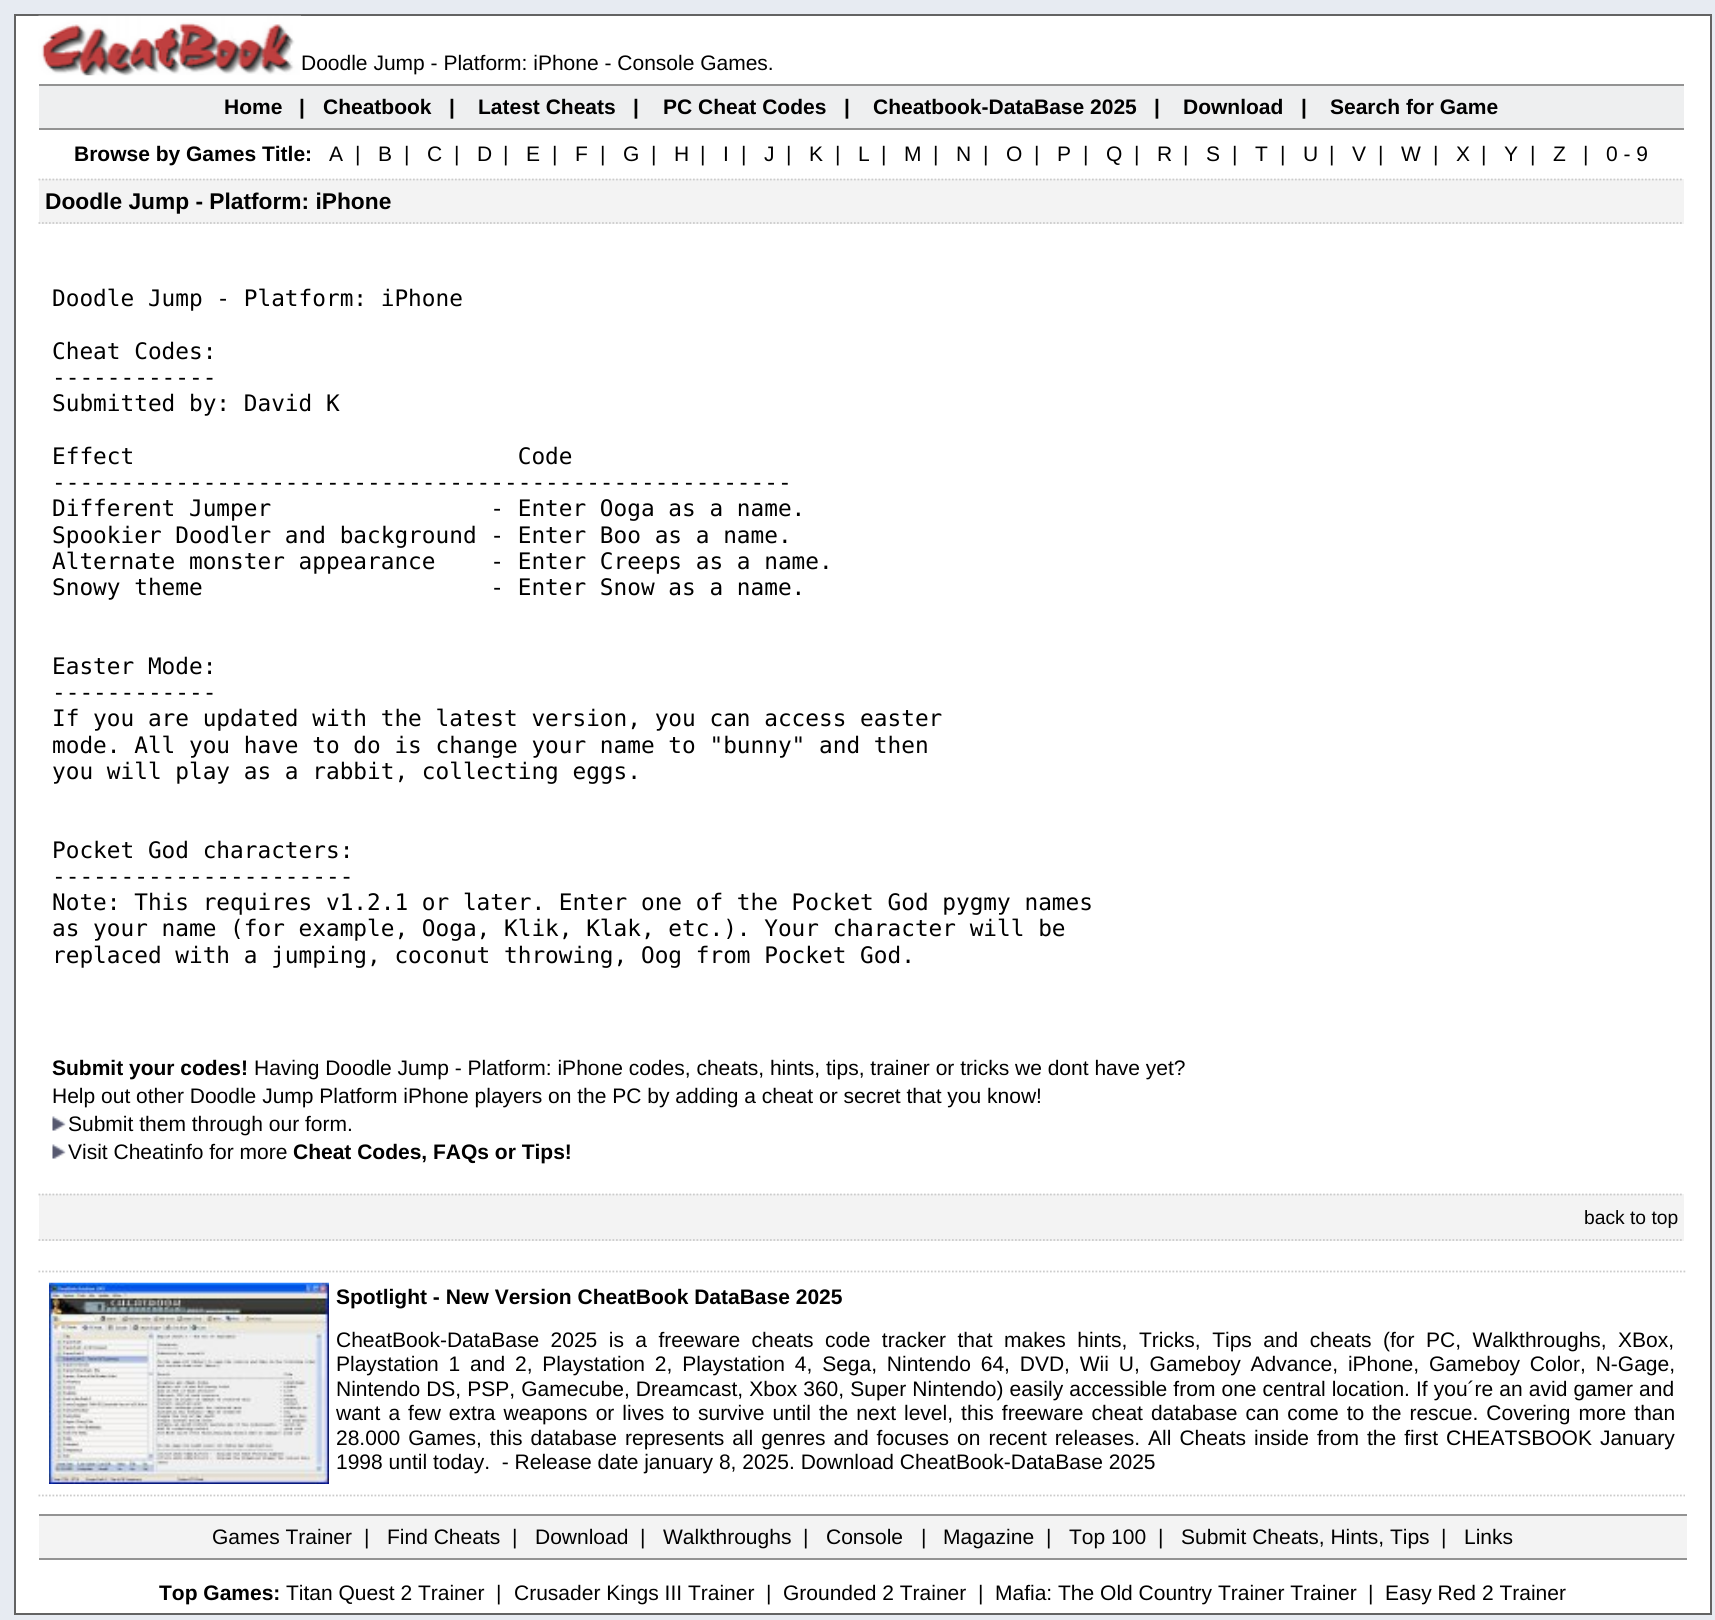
#include <cairo.h>
#include <math.h>
#include <stddef.h>

static cairo_t *c;
static void C(unsigned color){cairo_set_source_rgb(c, (color >> 16) / 255.0, (color >> 8 & 255) / 255.0, (color & 255) / 255.0);}
static void F(const char *family, double size, int italic, int bold){cairo_select_font_face(c, family, italic ? CAIRO_FONT_SLANT_ITALIC : CAIRO_FONT_SLANT_NORMAL,bold ? CAIRO_FONT_WEIGHT_BOLD : CAIRO_FONT_WEIGHT_NORMAL);cairo_set_font_size(c, size);}
static void T(double x, double y, const char *s){cairo_move_to(c, x, y);cairo_show_text(c, s);}
static void L(double x, double y, const char *s, double letter, double word){cairo_move_to(c, x, y);while (*s) {char ch[5] = {0};int n = 0;do ch[n++] = *s++; while ((*s & 0xC0) == 0x80);cairo_show_text(c, ch);cairo_rel_move_to(c, letter + word * (*ch == ' '), 0);}}
static void R(double x, double y, double w, double h){cairo_rectangle(c, x, y, w, h);cairo_fill(c);}
static void I(const char *path, double x, double y, double w, double h){cairo_surface_t *image = cairo_image_surface_create_from_png(path);cairo_save(c);cairo_set_source_surface(c, image, x, y);cairo_rectangle(c, x, y, w, h);cairo_fill(c);cairo_restore(c);cairo_surface_destroy(image);}
int main(void) {
cairo_surface_t *surface = cairo_image_surface_create(CAIRO_FORMAT_RGB24, 1715, 1620);
c = cairo_create(surface);
cairo_font_options_t *options = cairo_font_options_create();
cairo_font_options_set_hint_metrics(options, CAIRO_HINT_METRICS_OFF);
cairo_font_options_set_hint_style(options, CAIRO_HINT_STYLE_NONE);
cairo_set_font_options(c, options);
cairo_set_miter_limit(c, 4);
C(0xe7ebf2);
cairo_paint(c);
C(0xffffff);
cairo_rectangle(c,15,15,1696,1599);
cairo_fill_preserve(c);
C(0x636363);
cairo_stroke(c);
I("1.png",38,15,263,61);
F("Liberation Sans",21,0,0);
C(0x000000);
T(301,70,"Doodle Jump - Platform: iPhone - Console Games.");
C(0xeeeff0);
R(39,86,1645,42);
C(0x939393);
R(39,84,1645,2);
R(39,128,1645,2);
F("Liberation Sans",21,0,1);
C(0x000000);
T(224,114,"Home");
T(299,114,"|");
T(323,114,"Cheatbook");
T(449,114,"|");
T(478,114,"Latest Cheats");
T(633,114,"|");
T(663,114,"PC Cheat Codes");
T(844,114,"|");
T(873,114,"Cheatbook-DataBase 2025");
T(1154,114,"|");
T(1183,114,"Download");
T(1301,114,"|");
T(1330,114,"Search for Game");
T(74,161,"Browse by Games Title:");
F("Liberation Sans",21,0,0);
T(329,161,"A");
T(355,161,"|");
T(378,161,"B");
T(404,161,"|");
T(427,161,"C");
T(454,161,"|");
T(477,161,"D");
T(503,161,"|");
T(526,161,"E");
T(552,161,"|");
T(575,161,"F");
T(600,161,"|");
T(623,161,"G");
T(651,161,"|");
T(674,161,"H");
T(700,161,"|");
T(723,161,"I");
T(741,161,"|");
T(764,161,"J");
T(786,161,"|");
T(809,161,"K");
T(835,161,"|");
T(858,161,"L");
T(881,161,"|");
T(904,161,"M");
T(933,161,"|");
T(956,161,"N");
T(983,161,"|");
T(1006,161,"O");
T(1034,161,"|");
T(1057,161,"P");
T(1083,161,"|");
T(1106,161,"Q");
T(1134,161,"|");
T(1157,161,"R");
T(1183,161,"|");
T(1206,161,"S");
T(1232,161,"|");
T(1255,161,"T");
T(1280,161,"|");
T(1303,161,"U");
T(1329,161,"|");
T(1352,161,"V");
T(1378,161,"|");
T(1401,161,"W");
T(1433,161,"|");
T(1456,161,"X");
T(1481,161,"|");
T(1504,161,"Y");
T(1530,161,"|");
T(1553,161,"Z");
T(1583,161,"|");
T(1606,161,"0 - 9");
C(0xf3f3f3);
R(39,179,1645,45);
cairo_new_path(c);
cairo_move_to(c,38.5,179.5);
cairo_line_to(c,1683.5,179.5);
C(0xcccccc);
cairo_set_line_width(c,1.8);
cairo_set_dash(c,(double[]){1.75,1.75},2,0);
cairo_stroke(c);
cairo_new_path(c);
cairo_move_to(c,38.5,223);
cairo_line_to(c,1683.5,223);
cairo_stroke(c);
F("Liberation Sans",22.75,0,1);
C(0x000000);
T(45,209,"Doodle Jump - Platform: iPhone");
F("DejaVu Sans Mono",22.75,0,0);
T(52,306,"Doodle Jump - Platform: iPhone");
T(52,359,"Cheat Codes:");
T(52,385,"------------");
T(52,411,"Submitted by: David K");
T(52,464,"Effect                            Code");
T(52,490,"------------------------------------------------------");
T(52,516,"Different Jumper                - Enter Ooga as a name.");
T(52,543,"Spookier Doodler and background - Enter Boo as a name.");
T(52,569,"Alternate monster appearance    - Enter Creeps as a name.");
T(52,595,"Snowy theme                     - Enter Snow as a name.");
T(52,674,"Easter Mode:");
T(52,700,"------------");
T(52,726,"If you are updated with the latest version, you can access easter");
T(52,753,"mode. All you have to do is change your name to \"bunny\" and then");
T(52,779,"you will play as a rabbit, collecting eggs.");
T(52,858,"Pocket God characters:");
T(52,884,"----------------------");
T(52,910,"Note: This requires v1.2.1 or later. Enter one of the Pocket God pygmy names");
T(52,936,"as your name (for example, Ooga, Klik, Klak, etc.). Your character will be");
T(52,963,"replaced with a jumping, coconut throwing, Oog from Pocket God.");
F("Liberation Sans",21,0,1);
T(52,1075,"Submit your codes!");
F("Liberation Sans",21,0,0);
T(254,1075,"Having Doodle Jump - Platform: iPhone codes, cheats, hints, tips, trainer or tricks we dont have yet?");
T(52,1103,"Help out other Doodle Jump Platform iPhone players on the PC by adding a cheat or secret that you know!");
I("2.png",52,1116,14,15);
T(68,1131,"Submit them through our form.");
I("2.png",52,1144,14,15);
T(68,1159,"Visit Cheatinfo for more");
F("Liberation Sans",21,0,1);
T(293,1159,"Cheat Codes, FAQs or Tips!");
C(0xf3f3f3);
R(39,1194,1645,47);
cairo_new_path(c);
cairo_move_to(c,38.5,1194.5);
cairo_line_to(c,1683.5,1194.5);
C(0xcccccc);
cairo_stroke(c);
cairo_new_path(c);
cairo_move_to(c,38.5,1240);
cairo_line_to(c,1683.5,1240);
cairo_stroke(c);
F("Liberation Sans",19.25,0,0);
C(0x000000);
T(1584,1224,"back to top");
cairo_new_path(c);
cairo_move_to(c,38.5,1271.5);
cairo_line_to(c,1687,1271.5);
C(0xcccccc);
cairo_stroke(c);
cairo_new_path(c);
cairo_move_to(c,38.5,1495.5);
cairo_line_to(c,1685,1495.5);
cairo_stroke(c);
I("3.png",49,1282,280,202);
F("Liberation Sans",21,0,1);
C(0x000000);
T(336,1304,"Spotlight - New Version CheatBook DataBase 2025");
F("Liberation Sans",21,0,0);
L(336,1347,"CheatBook-DataBase 2025 is a freeware cheats code tracker that makes hints, Tricks, Tips and cheats (for PC, Walkthroughs, XBox,",0,5.6);
L(336,1371,"Playstation 1 and 2, Playstation 2, Playstation 4, Sega, Nintendo 64, DVD, Wii U, Gameboy Advance, iPhone, Gameboy Color, N-Gage,",0,4);
L(336,1396,"Nintendo DS, PSP, Gamecube, Dreamcast, Xbox 360, Super Nintendo) easily accessible from one central location. If you´re an avid gamer and",0,.25);
L(336,1420,"want a few extra weapons or lives to survive until the next level, this freeware cheat database can come to the rescue. Covering more than",0,2.2);
L(336,1445,"28.000 Games, this database represents all genres and focuses on recent releases. All Cheats inside from the first CHEATSBOOK January",0,2.2);
T(336,1469,"1998 until today.  - Release date january 8, 2025. Download CheatBook-DataBase 2025");
C(0xf3f3f3);
R(39,1516,1648,42);
C(0x939393);
R(39,1514,1648,2);
R(39,1558,1648,2);
C(0x000000);
T(212,1544,"Games Trainer");
T(364,1544,"|");
T(387,1544,"Find Cheats");
T(512,1544,"|");
T(535,1544,"Download");
T(640,1544,"|");
T(663,1544,"Walkthroughs");
T(803,1544,"|");
T(826,1544,"Console");
T(921,1544,"|");
T(943,1544,"Magazine");
T(1046,1544,"|");
T(1069,1544,"Top 100");
T(1158,1544,"|");
T(1181,1544,"Submit Cheats, Hints, Tips");
T(1441,1544,"|");
T(1464,1544,"Links");
F("Liberation Sans",21,0,1);
T(159,1600,"Top Games:");
F("Liberation Sans",21,0,0);
T(286,1600,"Titan Quest 2 Trainer");
T(496,1600,"|");
T(514,1600,"Crusader Kings III Trainer");
T(766,1600,"|");
T(783,1600,"Grounded 2 Trainer");
T(978,1600,"|");
T(995,1600,"Mafia: The Old Country Trainer Trainer");
T(1368,1600,"|");
T(1385,1600,"Easy Red 2 Trainer");
cairo_surface_write_to_png(surface, "o.png");
cairo_font_options_destroy(options);
cairo_destroy(c);
cairo_surface_destroy(surface);
return 0;
}
